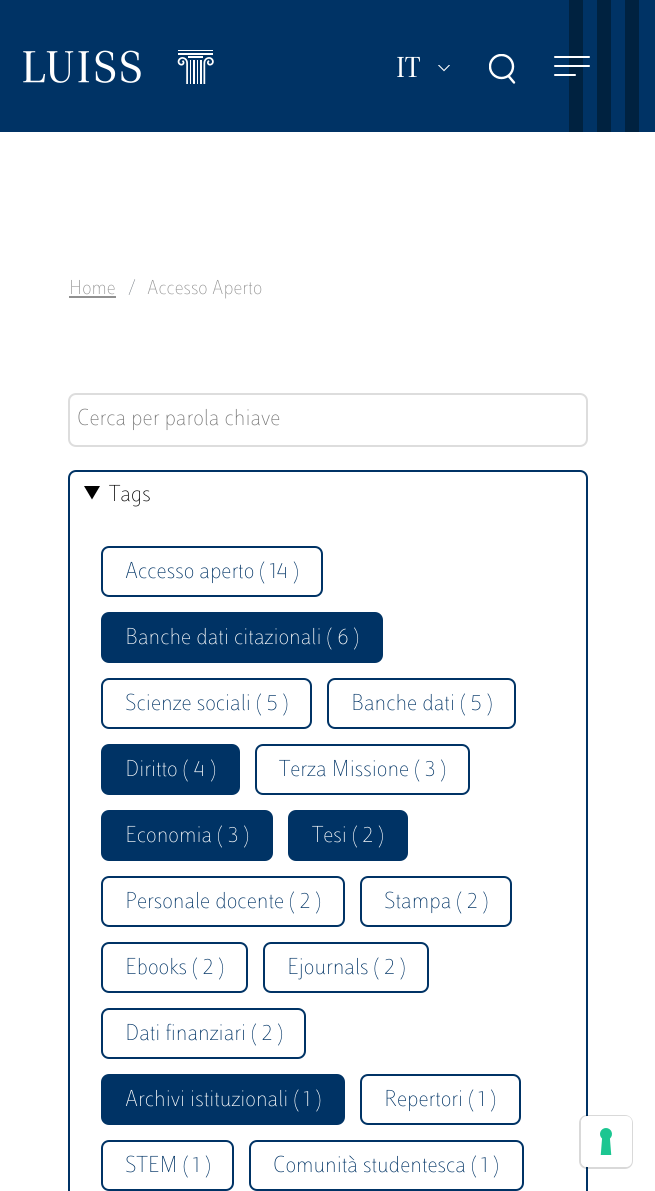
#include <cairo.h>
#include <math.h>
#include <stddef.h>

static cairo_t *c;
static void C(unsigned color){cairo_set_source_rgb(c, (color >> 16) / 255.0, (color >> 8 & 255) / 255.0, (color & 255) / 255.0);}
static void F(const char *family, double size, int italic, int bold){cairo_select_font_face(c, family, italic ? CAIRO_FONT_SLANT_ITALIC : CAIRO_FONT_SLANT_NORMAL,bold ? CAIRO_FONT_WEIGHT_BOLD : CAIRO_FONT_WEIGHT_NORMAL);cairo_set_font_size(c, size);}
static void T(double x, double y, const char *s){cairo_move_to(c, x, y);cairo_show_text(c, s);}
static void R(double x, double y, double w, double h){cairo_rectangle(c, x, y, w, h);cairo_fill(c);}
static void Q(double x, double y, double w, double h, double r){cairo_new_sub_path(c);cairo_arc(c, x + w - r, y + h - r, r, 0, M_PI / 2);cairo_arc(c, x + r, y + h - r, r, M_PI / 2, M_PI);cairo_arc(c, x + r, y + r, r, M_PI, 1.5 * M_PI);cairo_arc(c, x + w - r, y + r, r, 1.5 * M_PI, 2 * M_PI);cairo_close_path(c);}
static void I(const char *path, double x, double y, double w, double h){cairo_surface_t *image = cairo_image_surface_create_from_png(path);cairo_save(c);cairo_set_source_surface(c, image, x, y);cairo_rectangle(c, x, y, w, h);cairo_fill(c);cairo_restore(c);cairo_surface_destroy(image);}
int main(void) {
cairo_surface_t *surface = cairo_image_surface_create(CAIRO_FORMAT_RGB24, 655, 1191);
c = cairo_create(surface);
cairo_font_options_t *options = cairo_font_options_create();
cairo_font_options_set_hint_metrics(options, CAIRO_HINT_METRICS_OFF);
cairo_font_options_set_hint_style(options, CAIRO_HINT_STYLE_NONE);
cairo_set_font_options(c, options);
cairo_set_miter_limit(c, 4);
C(0xffffff);
cairo_paint(c);
C(0x003365);
R(0,0,655,132);
I("1.png",23,50,191,34);
cairo_save(c);
cairo_rectangle(c,396,47,24,45);
cairo_clip(c);
F("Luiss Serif",30,0,0);
C(0xffffff);
T(396,77,"IT");
cairo_restore(c);
I("2.png",438,65,12,7);
cairo_save(c);
cairo_rectangle(c,489,54,26,30);
cairo_clip(c);
cairo_arc(c,501.5,66.5,11.5,0,2 * M_PI);
C(0xffffff);
cairo_set_line_width(c,2.4);
cairo_stroke(c);
cairo_restore(c);
cairo_new_path(c);
cairo_move_to(c,514,82.5);
cairo_line_to(c,508.5,76);
C(0xffffff);
cairo_set_line_width(c,2.4);
cairo_set_line_cap(c,CAIRO_LINE_CAP_ROUND);
cairo_set_line_join(c,CAIRO_LINE_JOIN_ROUND);
cairo_stroke(c);
C(0x002240);
R(569,0,14,132);
C(0xffffff);
Q(554,56,36,2,1);
cairo_fill(c);
Q(554,65,36,2,1);
cairo_fill(c);
Q(554,74,22,2,1);
cairo_fill(c);
C(0x002240);
R(597,0,14,132);
R(625,0,14,132);
F("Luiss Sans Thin",21,0,0);
C(0x909090);
T(69,294,"Home");
R(69,296,47,2);
C(0x6c757d);
T(128,294,"/");
C(0x909090);
T(147,294,"Accesso Aperto");
Q(69,394,518,52,7);
C(0xdddddd);
cairo_set_line_width(c,2);
cairo_set_line_cap(c,CAIRO_LINE_CAP_BUTT);
cairo_set_line_join(c,CAIRO_LINE_JOIN_MITER);
cairo_stroke(c);
F("Luiss Sans Thin",24,0,0);
C(0x757575);
T(77,425,"Cerca per parola chiave");
Q(69,471,518,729,7);
C(0x003365);
cairo_stroke(c);
C(0x010101);
cairo_new_path(c);
cairo_move_to(c,84,486);
cairo_line_to(c,100,486);
cairo_line_to(c,92,499.5);
cairo_close_path(c);
cairo_fill(c);
T(109,501,"Tags");
Q(102,547,220,49,7);
C(0x003365);
cairo_stroke(c);
T(125,578,"Accesso aperto ( 14 )");
Q(102,613,280,49,7);
cairo_fill_preserve(c);
cairo_stroke(c);
C(0xffffff);
T(125,644,"Banche dati citazionali ( 6 )");
Q(102,679,209,49,7);
C(0x003365);
cairo_stroke(c);
T(125,710,"Scienze sociali ( 5 )");
Q(328,679,187,49,7);
cairo_stroke(c);
T(351,710,"Banche dati ( 5 )");
Q(102,745,137,49,7);
cairo_fill_preserve(c);
cairo_stroke(c);
C(0xffffff);
T(125,776,"Diritto ( 4 )");
Q(256,745,213,49,7);
C(0x003365);
cairo_stroke(c);
T(279,776,"Terza Missione ( 3 )");
Q(102,811,170,49,7);
cairo_fill_preserve(c);
cairo_stroke(c);
C(0xffffff);
T(125,842,"Economia ( 3 )");
C(0x003365);
Q(289,811,118,49,7);
cairo_fill_preserve(c);
cairo_stroke(c);
C(0xffffff);
T(312,842,"Tesi ( 2 )");
Q(102,877,242,49,7);
C(0x003365);
cairo_stroke(c);
T(125,908,"Personale docente ( 2 )");
Q(361,877,150,49,7);
cairo_stroke(c);
T(384,908,"Stampa ( 2 )");
Q(102,943,145,49,7);
cairo_stroke(c);
T(125,974,"Ebooks ( 2 )");
Q(264,943,164,49,7);
cairo_stroke(c);
T(287,974,"Ejournals ( 2 )");
Q(102,1009,203,49,7);
cairo_stroke(c);
T(125,1040,"Dati finanziari ( 2 )");
Q(102,1075,242,49,7);
cairo_fill_preserve(c);
cairo_stroke(c);
C(0xffffff);
T(125,1106,"Archivi istituzionali ( 1 )");
Q(361,1075,159,49,7);
C(0x003365);
cairo_stroke(c);
T(384,1106,"Repertori ( 1 )");
Q(102,1141,131,49,7);
cairo_stroke(c);
T(125,1172,"STEM ( 1 )");
Q(250,1141,273,49,7);
cairo_stroke(c);
T(273,1172,"Comunità studentesca ( 1 )");
Q(580,1116,52,52,7);
cairo_set_source_rgba(c,0,0,0,0.15);
cairo_stroke(c);
C(0xffffff);
Q(581,1116,51,51,6);
cairo_fill(c);
I("3.png",600,1128,12,27);
cairo_surface_write_to_png(surface, "o.png");
cairo_font_options_destroy(options);
cairo_destroy(c);
cairo_surface_destroy(surface);
return 0;
}
